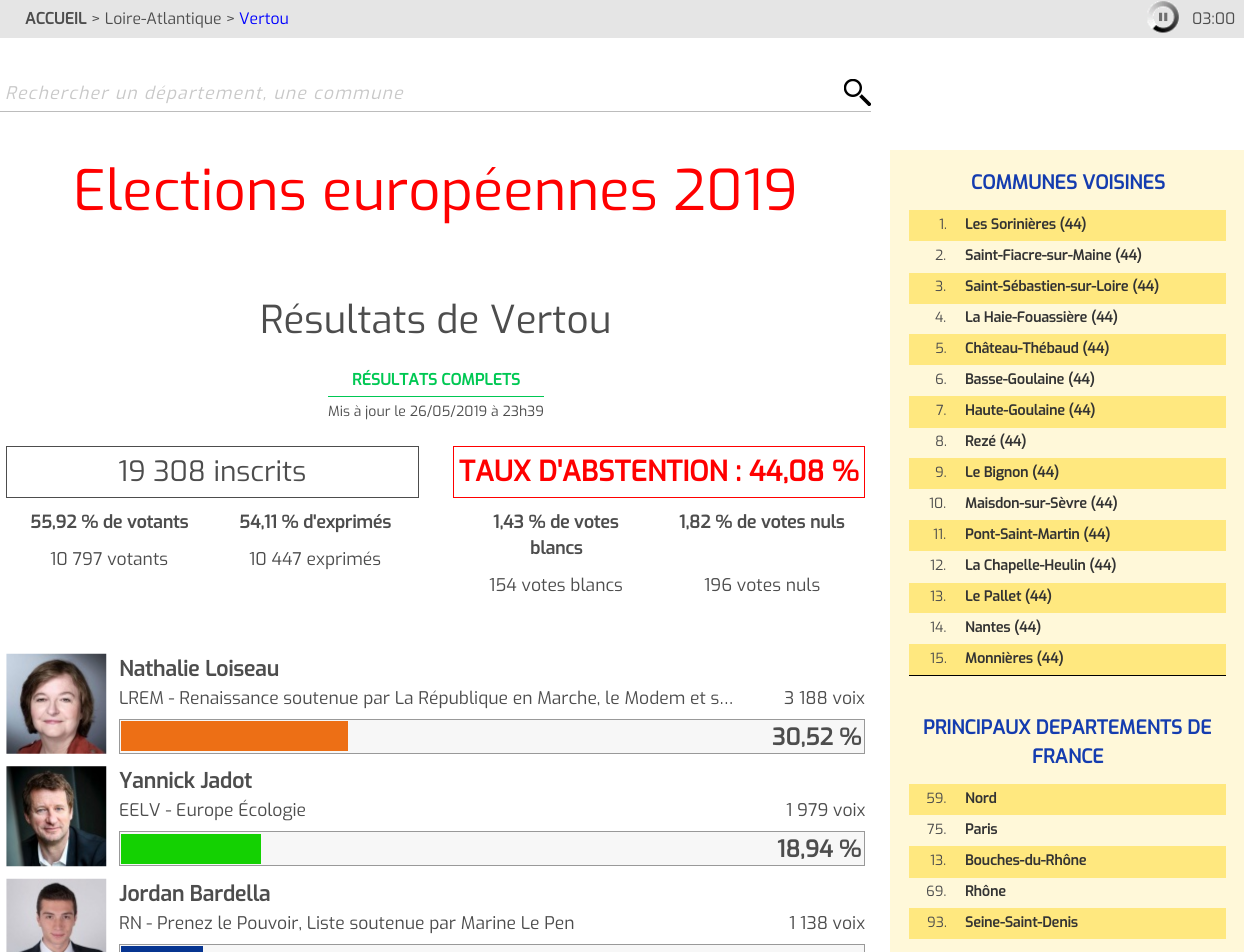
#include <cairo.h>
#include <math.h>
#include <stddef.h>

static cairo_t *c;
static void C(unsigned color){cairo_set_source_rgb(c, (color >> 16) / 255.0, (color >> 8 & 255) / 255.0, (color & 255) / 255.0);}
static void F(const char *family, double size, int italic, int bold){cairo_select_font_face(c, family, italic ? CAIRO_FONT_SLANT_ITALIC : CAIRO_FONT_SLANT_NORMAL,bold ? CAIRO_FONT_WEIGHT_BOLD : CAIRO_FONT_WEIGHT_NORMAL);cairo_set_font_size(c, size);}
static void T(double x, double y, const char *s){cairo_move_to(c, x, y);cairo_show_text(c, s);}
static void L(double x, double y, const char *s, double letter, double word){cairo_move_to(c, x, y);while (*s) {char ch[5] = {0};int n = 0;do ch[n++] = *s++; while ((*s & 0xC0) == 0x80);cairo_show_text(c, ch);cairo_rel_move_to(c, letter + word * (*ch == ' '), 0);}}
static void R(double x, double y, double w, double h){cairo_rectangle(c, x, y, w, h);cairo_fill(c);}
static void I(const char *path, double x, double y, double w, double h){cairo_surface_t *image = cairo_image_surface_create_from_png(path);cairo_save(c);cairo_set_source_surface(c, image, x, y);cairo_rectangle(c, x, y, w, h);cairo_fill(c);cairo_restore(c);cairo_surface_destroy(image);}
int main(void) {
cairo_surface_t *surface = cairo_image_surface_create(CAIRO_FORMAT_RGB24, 1244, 952);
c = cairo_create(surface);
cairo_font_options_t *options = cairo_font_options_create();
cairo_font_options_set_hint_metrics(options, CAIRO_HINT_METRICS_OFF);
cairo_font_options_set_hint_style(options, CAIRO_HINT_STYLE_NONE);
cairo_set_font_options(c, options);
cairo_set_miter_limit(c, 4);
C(0xffffff);
cairo_paint(c);
C(0xe5e5e5);
R(0,0,1244,38);
F("Exo",15.75,0,1);
C(0x4d4d4d);
T(25,24,"ACCUEIL");
F("Exo",15.75,0,0);
T(91,24,"> Loire-Atlantique >");
C(0x0000ff);
T(239,24,"Vertou");
I("1.png",1147,1,32,32);
C(0x4d4d4d);
T(1192,24,"03:00");
C(0xbcbcbc);
R(0,111,871,1);
F("Exo",17.5,1,0);
C(0xc8c8c8);
L(5,99,"Rechercher un département, une commune",1.25,0);
I("2.png",844,79,27,27);
F("Exo",56,0,0);
C(0xff0000);
T(73,210,"Elections européennes 2019");
F("Exo",38.5,0,0);
C(0x4d4d4d);
T(260,333,"Résultats de Vertou");
C(0x00c853);
R(328,396,216,1);
F("Exo",15.75,0,1);
T(352,385,"RÉSULTATS COMPLETS");
F("Exo",14,0,0);
C(0x4d4d4d);
T(328,416,"Mis à jour le 26/05/2019 à 23h39");
cairo_rectangle(c,6.5,446.5,412,51);
cairo_set_line_width(c,1);
cairo_stroke(c);
F("Exo",28,0,0);
T(118,481,"19 308 inscrits");
F("Exo",17.5,0,1);
T(30,528,"55,92 % de votants");
T(239,528,"54,11 % d'exprimés");
F("Exo",17.5,0,0);
T(50,565,"10 797 votants");
T(249,565,"10 447 exprimés");
cairo_rectangle(c,453.5,446.5,411,51);
C(0xff0000);
cairo_stroke(c);
F("Exo",28,0,1);
T(459,481,"TAUX D'ABSTENTION : 44,08 %");
F("Exo",17.5,0,1);
C(0x4d4d4d);
T(493,528,"1,43 % de votes");
T(530,554,"blancs");
T(679,528,"1,82 % de votes nuls");
F("Exo",17.5,0,0);
T(489,591,"154 votes blancs");
T(704,591,"196 votes nuls");
I("3.png",6,653,101,101);
F("Exo",21,0,1);
T(119,676,"Nathalie Loiseau");
F("Exo",17.5,0,0);
T(119,704,"LREM - Renaissance soutenue par La République en Marche, le Modem et s…");
T(784,704,"3 188 voix");
C(0xf7f7f7);
cairo_rectangle(c,119.5,719.5,745,34);
cairo_fill_preserve(c);
C(0x999999);
cairo_stroke(c);
C(0xed6f15);
R(121,721,227,30);
F("Exo",23,0,1);
C(0x4d4d4d);
T(772,745,"30,52 %");
I("4.png",6,766,101,101);
F("Exo",21,0,1);
T(119,788,"Yannick Jadot");
F("Exo",17.5,0,0);
T(119,816,"EELV - Europe Écologie");
T(786,816,"1 979 voix");
C(0xf7f7f7);
cairo_rectangle(c,119.5,831.5,745,34);
cairo_fill_preserve(c);
C(0x999999);
cairo_stroke(c);
C(0x14d102);
R(121,834,140,30);
F("Exo",23,0,1);
C(0x4d4d4d);
T(777,857,"18,94 %");
I("5.png",6,878,101,74);
F("Exo",21,0,1);
T(119,901,"Jordan Bardella");
F("Exo",17.5,0,0);
T(119,929,"RN - Prenez le Pouvoir, Liste soutenue par Marine Le Pen");
T(789,929,"1 138 voix");
C(0xf7f7f7);
cairo_rectangle(c,119.5,944.5,745,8);
cairo_fill_preserve(c);
C(0x999999);
cairo_stroke(c);
C(0x073591);
R(121,946,82,6);
C(0xfff8d9);
R(890,150,354,802);
F("Exo",19.25,0,1);
C(0x143caf);
T(971,189,"COMMUNES VOISINES");
C(0x000000);
R(909,675,317,1);
C(0xffe87f);
R(909,210,317,31);
F("Exo",14,0,0);
C(0x4d4d4d);
T(939,229,"1.");
F("Exo",14,0,1);
C(0x333333);
T(965,229,"Les Sorinières (44)");
F("Exo",14,0,0);
C(0x4d4d4d);
T(935,260,"2.");
F("Exo",14,0,1);
C(0x333333);
T(965,260,"Saint-Fiacre-sur-Maine (44)");
C(0xffe87f);
R(909,273,317,31);
F("Exo",14,0,0);
C(0x4d4d4d);
T(935,291,"3.");
F("Exo",14,0,1);
C(0x333333);
T(965,291,"Saint-Sébastien-sur-Loire (44)");
F("Exo",14,0,0);
C(0x4d4d4d);
T(935,322,"4.");
F("Exo",14,0,1);
C(0x333333);
T(965,322,"La Haie-Fouassière (44)");
C(0xffe87f);
R(909,334,317,31);
F("Exo",14,0,0);
C(0x4d4d4d);
T(935,353,"5.");
F("Exo",14,0,1);
C(0x333333);
T(965,353,"Château-Thébaud (44)");
F("Exo",14,0,0);
C(0x4d4d4d);
T(935,384,"6.");
F("Exo",14,0,1);
C(0x333333);
T(965,384,"Basse-Goulaine (44)");
C(0xffe87f);
R(909,396,317,32);
F("Exo",14,0,0);
C(0x4d4d4d);
T(936,415,"7.");
F("Exo",14,0,1);
C(0x333333);
T(965,415,"Haute-Goulaine (44)");
F("Exo",14,0,0);
C(0x4d4d4d);
T(935,446,"8.");
F("Exo",14,0,1);
C(0x333333);
T(965,446,"Rezé (44)");
C(0xffe87f);
R(909,458,317,31);
F("Exo",14,0,0);
C(0x4d4d4d);
T(935,477,"9.");
F("Exo",14,0,1);
C(0x333333);
T(965,477,"Le Bignon (44)");
F("Exo",14,0,0);
C(0x4d4d4d);
T(929,508,"10.");
F("Exo",14,0,1);
C(0x333333);
T(965,508,"Maisdon-sur-Sèvre (44)");
C(0xffe87f);
R(909,520,317,31);
F("Exo",14,0,0);
C(0x4d4d4d);
T(933,539,"11.");
F("Exo",14,0,1);
C(0x333333);
T(965,539,"Pont-Saint-Martin (44)");
F("Exo",14,0,0);
C(0x4d4d4d);
T(930,570,"12.");
F("Exo",14,0,1);
C(0x333333);
T(965,570,"La Chapelle-Heulin (44)");
C(0xffe87f);
R(909,583,317,30);
F("Exo",14,0,0);
C(0x4d4d4d);
T(930,601,"13.");
F("Exo",14,0,1);
C(0x333333);
T(965,601,"Le Pallet (44)");
F("Exo",14,0,0);
C(0x4d4d4d);
T(930,632,"14.");
F("Exo",14,0,1);
C(0x333333);
T(965,632,"Nantes (44)");
C(0xffe87f);
R(909,644,317,31);
F("Exo",14,0,0);
C(0x4d4d4d);
T(930,663,"15.");
F("Exo",14,0,1);
C(0x333333);
T(965,663,"Monnières (44)");
F("Exo",19.25,0,1);
C(0x143caf);
T(923,734,"PRINCIPAUX DEPARTEMENTS DE");
T(1032,763,"FRANCE");
C(0xffe87f);
R(909,784,317,31);
F("Exo",14,0,0);
C(0x4d4d4d);
T(926,803,"59.");
F("Exo",14,0,1);
C(0x333333);
T(965,803,"Nord");
F("Exo",14,0,0);
C(0x4d4d4d);
T(927,834,"75.");
F("Exo",14,0,1);
C(0x333333);
T(965,834,"Paris");
C(0xffe87f);
R(909,846,317,32);
F("Exo",14,0,0);
C(0x4d4d4d);
T(930,865,"13.");
F("Exo",14,0,1);
C(0x333333);
T(965,865,"Bouches-du-Rhône");
F("Exo",14,0,0);
C(0x4d4d4d);
T(926,896,"69.");
F("Exo",14,0,1);
C(0x333333);
T(965,896,"Rhône");
C(0xffe87f);
R(909,908,317,31);
F("Exo",14,0,0);
C(0x4d4d4d);
T(927,927,"93.");
F("Exo",14,0,1);
C(0x333333);
T(965,927,"Seine-Saint-Denis");
cairo_surface_write_to_png(surface, "o.png");
cairo_font_options_destroy(options);
cairo_destroy(c);
cairo_surface_destroy(surface);
return 0;
}
